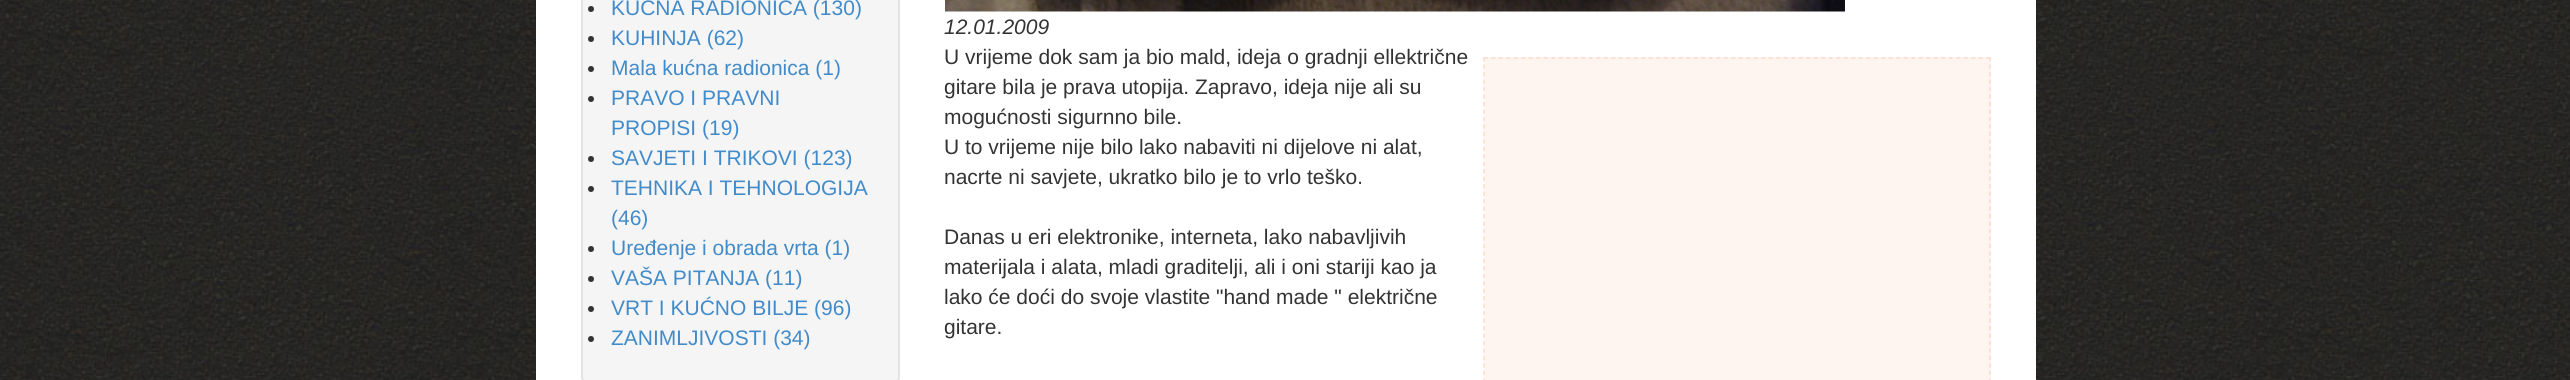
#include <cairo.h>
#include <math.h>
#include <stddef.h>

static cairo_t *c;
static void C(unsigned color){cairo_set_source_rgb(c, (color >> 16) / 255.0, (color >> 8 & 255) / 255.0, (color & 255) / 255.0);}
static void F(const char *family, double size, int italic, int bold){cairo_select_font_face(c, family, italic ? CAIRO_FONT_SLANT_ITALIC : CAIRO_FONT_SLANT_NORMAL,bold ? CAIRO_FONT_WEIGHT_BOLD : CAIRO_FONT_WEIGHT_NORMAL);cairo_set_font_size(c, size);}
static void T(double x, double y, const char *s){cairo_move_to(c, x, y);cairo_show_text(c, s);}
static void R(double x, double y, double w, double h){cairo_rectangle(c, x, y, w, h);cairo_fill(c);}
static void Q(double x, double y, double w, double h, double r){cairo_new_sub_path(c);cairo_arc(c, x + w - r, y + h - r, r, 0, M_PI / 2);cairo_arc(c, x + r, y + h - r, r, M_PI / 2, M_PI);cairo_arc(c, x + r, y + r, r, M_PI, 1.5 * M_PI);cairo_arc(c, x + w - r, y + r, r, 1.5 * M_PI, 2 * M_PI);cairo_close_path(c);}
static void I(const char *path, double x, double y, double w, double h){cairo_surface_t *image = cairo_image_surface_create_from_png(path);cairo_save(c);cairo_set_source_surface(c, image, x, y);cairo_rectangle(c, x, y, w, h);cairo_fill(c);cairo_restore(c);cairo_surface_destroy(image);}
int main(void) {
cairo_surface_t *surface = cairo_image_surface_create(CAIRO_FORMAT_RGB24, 2570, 380);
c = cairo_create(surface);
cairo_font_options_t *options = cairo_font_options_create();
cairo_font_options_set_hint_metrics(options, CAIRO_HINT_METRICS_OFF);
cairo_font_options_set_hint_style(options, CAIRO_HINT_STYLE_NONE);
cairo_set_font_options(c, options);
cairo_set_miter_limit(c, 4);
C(0xffffff);
cairo_paint(c);
I("1.png",0,0,2570,380);
C(0xffffff);
R(536,0,1500,380);
C(0xf5f5f5);
Q(582,-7,317,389,5);
cairo_fill_preserve(c);
C(0xe3e3e3);
cairo_stroke(c);
C(0x333333);
cairo_arc(c,591,9,3,0,2 * M_PI);
cairo_fill(c);
F("Liberation Sans",21,0,0);
C(0x428bca);
T(611,15,"KUĆNA RADIONICA (130)");
C(0x333333);
cairo_new_path(c);
cairo_arc(c,591,39,3,0,2 * M_PI);
cairo_fill(c);
C(0x428bca);
T(611,45,"KUHINJA (62)");
C(0x333333);
cairo_new_path(c);
cairo_arc(c,591,69,3,0,2 * M_PI);
cairo_fill(c);
C(0x428bca);
T(611,75,"Mala kućna radionica (1)");
C(0x333333);
cairo_new_path(c);
cairo_arc(c,591,99,3,0,2 * M_PI);
cairo_fill(c);
C(0x428bca);
T(611,105,"PRAVO I PRAVNI");
T(611,135,"PROPISI (19)");
C(0x333333);
cairo_new_path(c);
cairo_arc(c,591,159,3,0,2 * M_PI);
cairo_fill(c);
C(0x428bca);
T(611,165,"SAVJETI I TRIKOVI (123)");
C(0x333333);
cairo_new_path(c);
cairo_arc(c,591,189,3,0,2 * M_PI);
cairo_fill(c);
C(0x428bca);
T(611,195,"TEHNIKA I TEHNOLOGIJA");
T(611,225,"(46)");
C(0x333333);
cairo_new_path(c);
cairo_arc(c,591,249,3,0,2 * M_PI);
cairo_fill(c);
C(0x428bca);
T(611,255,"Uređenje i obrada vrta (1)");
C(0x333333);
cairo_new_path(c);
cairo_arc(c,591,279,3,0,2 * M_PI);
cairo_fill(c);
C(0x428bca);
T(611,285,"VAŠA PITANJA (11)");
C(0x333333);
cairo_new_path(c);
cairo_arc(c,591,309,3,0,2 * M_PI);
cairo_fill(c);
C(0x428bca);
T(611,315,"VRT I KUĆNO BILJE (96)");
C(0x333333);
cairo_new_path(c);
cairo_arc(c,591,339,3,0,2 * M_PI);
cairo_fill(c);
C(0x428bca);
T(611,345,"ZANIMLJIVOSTI (34)");
I("2.png",945,0,900,12);
F("Liberation Sans",21,1,0);
C(0x333333);
T(944,34,"12.01.2009");
F("Liberation Sans",21,0,0);
T(944,64,"U vrijeme dok sam ja bio mald, ideja o gradnji ellektrične");
T(944,94,"gitare bila je prava utopija. Zapravo, ideja nije ali su");
T(944,124,"mogućnosti sigurnno bile.");
T(944,154,"U to vrijeme nije bilo lako nabaviti ni dijelove ni alat,");
T(944,184,"nacrte ni savjete, ukratko bilo je to vrlo teško.");
T(944,244,"Danas u eri elektronike, interneta, lako nabavljivih");
T(944,274,"materijala i alata, mladi graditelji, ali i oni stariji kao ja");
T(944,304,"lako će doći do svoje vlastite \"hand made \" električne");
T(944,334,"gitare.");
C(0xfef5f0);
R(1484,57,507,323);
cairo_new_path(c);
cairo_move_to(c,1483.5,58);
cairo_line_to(c,1990.5,58);
C(0xfcddcd);
cairo_set_line_width(c,1.5);
cairo_set_dash(c,(double[]){4.5,3},2,0);
cairo_stroke(c);
cairo_new_path(c);
cairo_move_to(c,1990,57);
cairo_line_to(c,1990,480);
cairo_set_dash(c,(double[]){4.5,2.97},2,0);
cairo_stroke(c);
cairo_new_path(c);
cairo_move_to(c,1484,57);
cairo_line_to(c,1484,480);
cairo_stroke(c);
cairo_surface_write_to_png(surface, "o.png");
cairo_font_options_destroy(options);
cairo_destroy(c);
cairo_surface_destroy(surface);
return 0;
}
